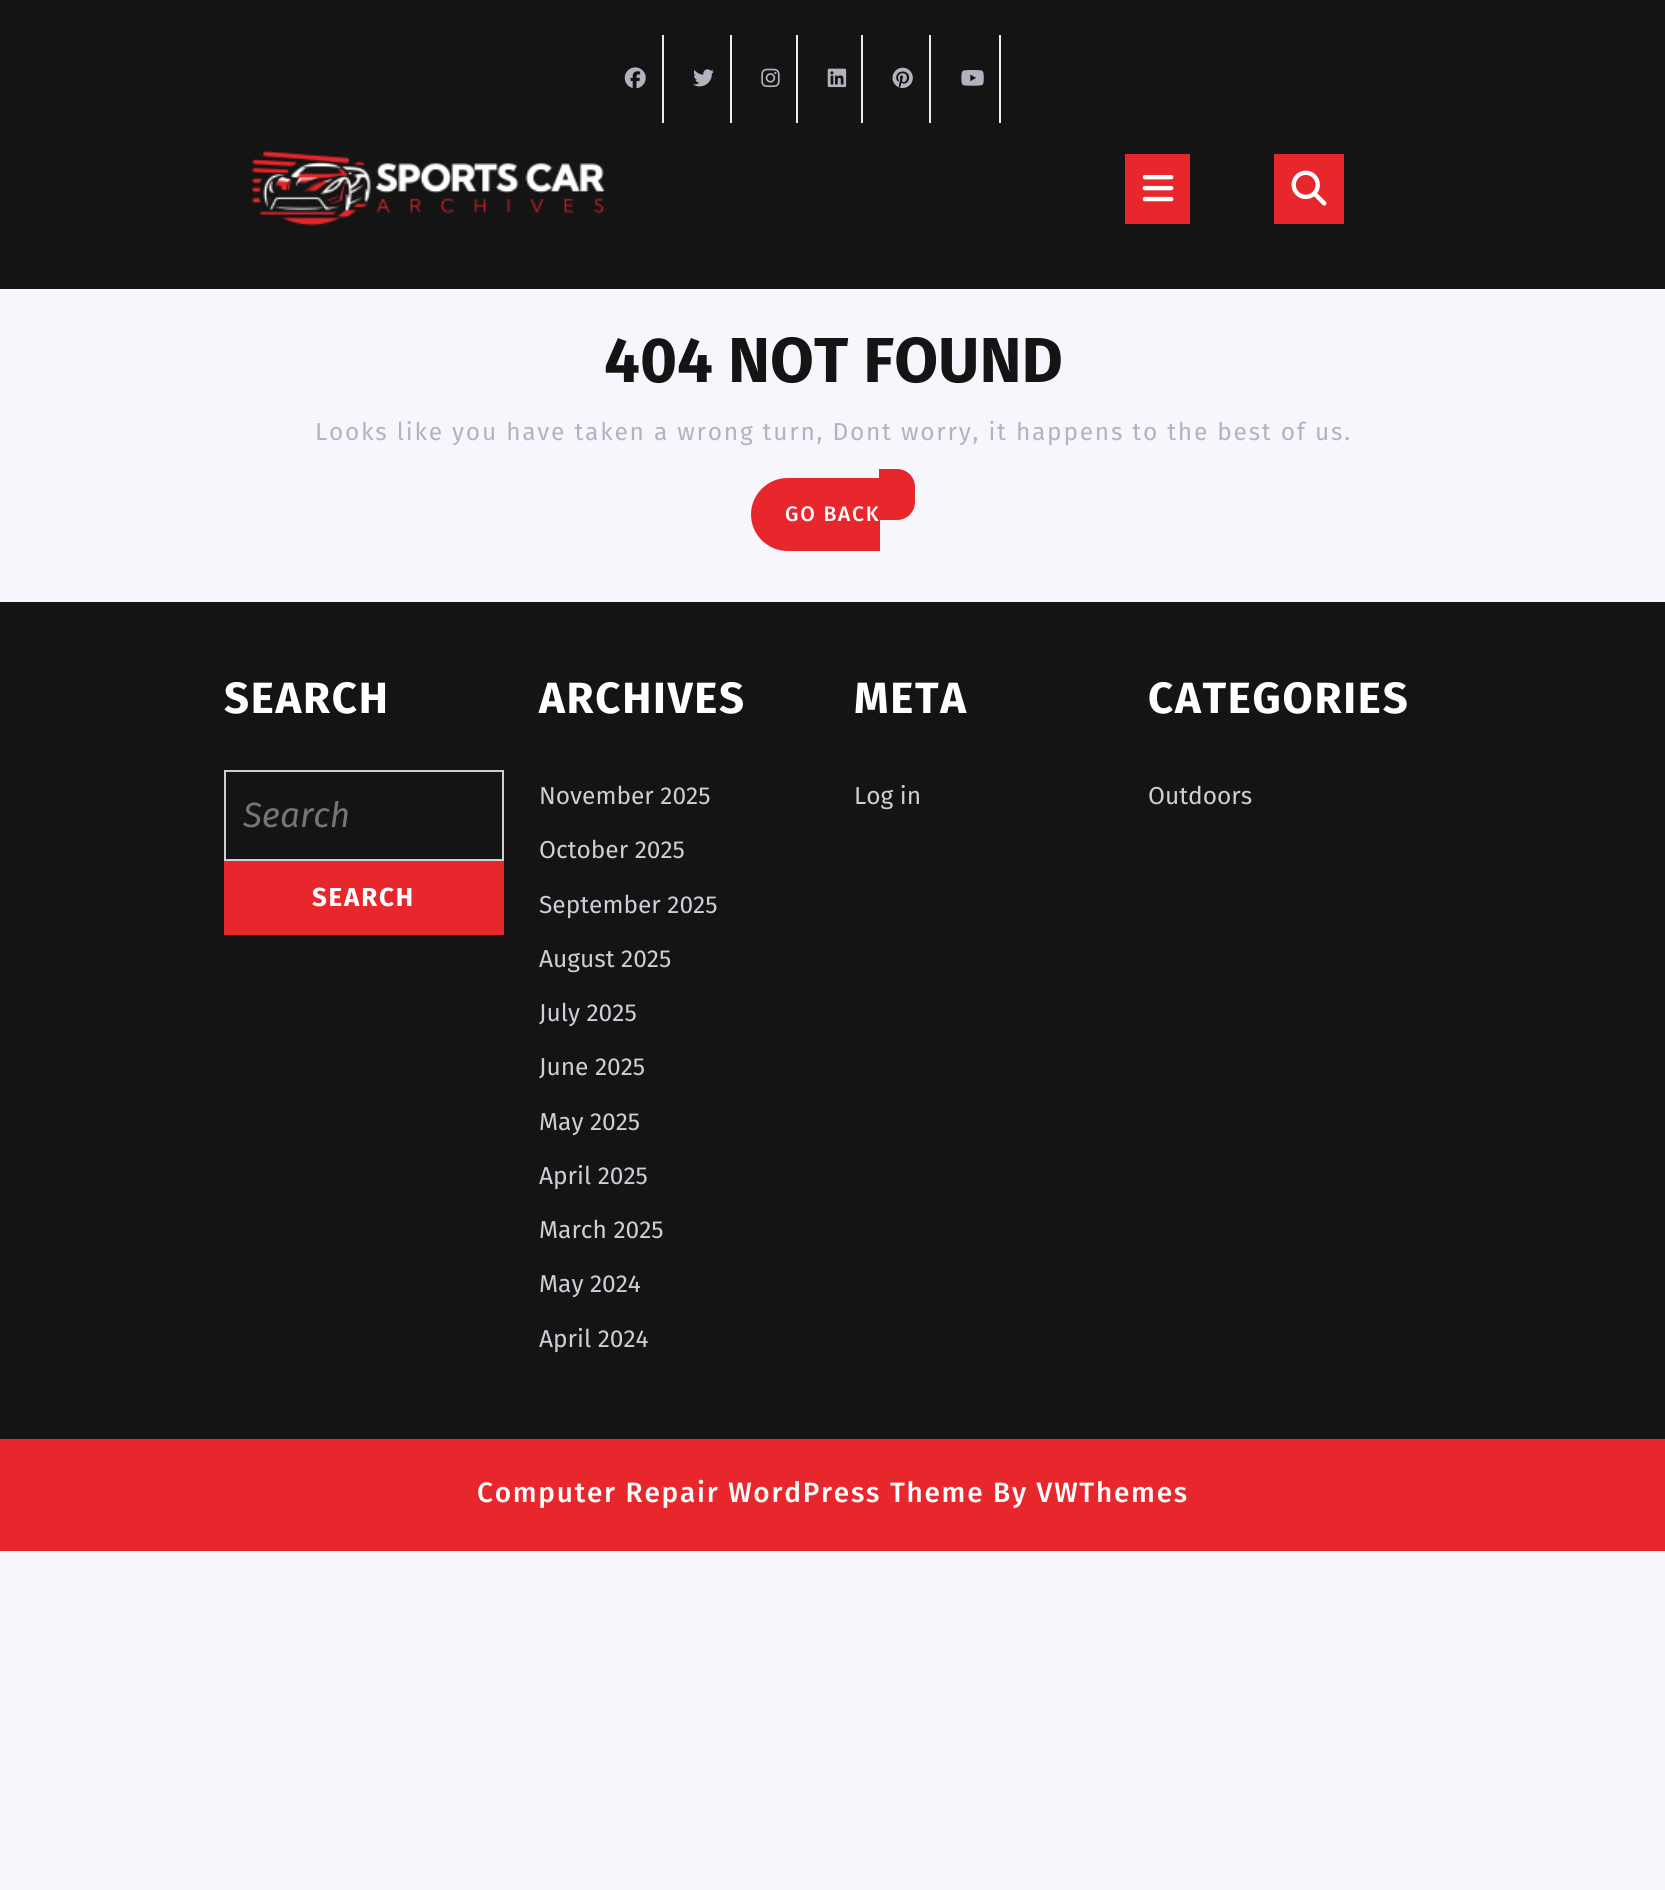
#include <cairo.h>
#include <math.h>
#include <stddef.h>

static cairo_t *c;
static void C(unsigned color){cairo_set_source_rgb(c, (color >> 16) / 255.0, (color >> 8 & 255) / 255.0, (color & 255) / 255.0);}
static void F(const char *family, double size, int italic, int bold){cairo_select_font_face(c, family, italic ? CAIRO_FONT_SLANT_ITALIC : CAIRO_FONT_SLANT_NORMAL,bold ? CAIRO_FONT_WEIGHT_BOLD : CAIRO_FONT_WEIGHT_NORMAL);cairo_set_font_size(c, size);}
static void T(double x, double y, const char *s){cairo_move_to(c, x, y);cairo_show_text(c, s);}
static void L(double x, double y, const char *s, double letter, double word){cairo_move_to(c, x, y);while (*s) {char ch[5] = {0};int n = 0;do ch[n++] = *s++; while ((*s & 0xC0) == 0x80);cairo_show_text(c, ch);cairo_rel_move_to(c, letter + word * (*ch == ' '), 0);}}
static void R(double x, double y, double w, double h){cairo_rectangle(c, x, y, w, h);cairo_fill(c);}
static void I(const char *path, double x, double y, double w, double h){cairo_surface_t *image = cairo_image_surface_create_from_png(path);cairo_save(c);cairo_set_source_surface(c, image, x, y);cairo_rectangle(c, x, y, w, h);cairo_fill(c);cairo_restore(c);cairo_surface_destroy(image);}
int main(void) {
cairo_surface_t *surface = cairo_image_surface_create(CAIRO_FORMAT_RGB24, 1665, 1890);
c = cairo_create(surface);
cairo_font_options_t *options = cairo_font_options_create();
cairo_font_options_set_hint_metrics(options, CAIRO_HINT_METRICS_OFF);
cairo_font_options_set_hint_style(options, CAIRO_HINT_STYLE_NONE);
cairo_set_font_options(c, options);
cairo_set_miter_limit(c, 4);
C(0xf7f6fd);
cairo_paint(c);
C(0x151414);
R(0,0,1665,289);
C(0xededf0);
R(662,35,2,88);
I("1.png",624,67,22,22);
R(730,35,2,88);
I("2.png",693,69,21,18);
R(796,35,2,88);
I("3.png",761,68,19,20);
R(861,35,2,88);
I("4.png",827,68,20,20);
R(929,35,2,88);
I("5.png",892,67,21,22);
R(999,35,2,88);
I("6.png",961,70,23,16);
I("7.png",252,150,354,76);
C(0xe8272d);
R(1125,154,65,70);
I("8.png",1142,175,32,27);
R(1274,154,70,70);
I("9.png",1291,170,36,36);
F("Fira Sans",63.5,0,1);
C(0x151414);
T(604,382,"404 NOT FOUND");
F("Fira Sans",24.5,0,0);
C(0xb3b3c0);
L(315,440,"Looks like you have taken a wrong turn, Dont worry, it happens to the best of us.",1.75,0);
C(0xe8272d);
cairo_new_path(c);
cairo_move_to(c,787.5,478);
cairo_line_to(c,880,478);
cairo_line_to(c,880,551);
cairo_line_to(c,787.5,551);
cairo_curve_to(c,767.5,551,751,534.5,751,514.5);
cairo_curve_to(c,751,494.5,767.5,478,787.5,478);
cairo_close_path(c);
cairo_fill(c);
F("Fira Sans Medium",21,0,0);
C(0xffffff);
L(785,521,"GO BACK",1.75,0);
C(0xe8272d);
cairo_new_path(c);
cairo_move_to(c,879,469);
cairo_line_to(c,897,469);
cairo_curve_to(c,907,469,915,477,915,487);
cairo_line_to(c,915,502);
cairo_curve_to(c,915,512,907,520,897,520);
cairo_line_to(c,879,520);
cairo_close_path(c);
cairo_fill(c);
C(0x151414);
R(0,602,1665,837);
F("Fira Sans",43.75,0,1);
C(0xffffff);
L(224,713,"SEARCH",1.75,0);
cairo_rectangle(c,225,771,278,89);
C(0xceced7);
cairo_stroke(c);
F("Fira Sans",35,1,0);
C(0x757575);
T(243,827,"Search");
C(0xe8272d);
R(224,861,280,74);
F("Fira Sans",26,0,1);
C(0xffffff);
L(312,906,"SEARCH",1.75,0);
F("Fira Sans",43.75,0,1);
L(539,713,"ARCHIVES",1.75,0);
F("Fira Sans",24.5,0,0);
C(0xceced7);
T(539,804,"November 2025");
T(539,858,"October 2025");
T(539,913,"September 2025");
T(539,967,"August 2025");
T(539,1021,"July 2025");
T(539,1075,"June 2025");
T(539,1130,"May 2025");
T(539,1184,"April 2025");
T(539,1238,"March 2025");
T(539,1292,"May 2024");
T(539,1347,"April 2024");
F("Fira Sans",43.75,0,1);
C(0xffffff);
L(854,713,"META",1.75,0);
F("Fira Sans",24.5,0,0);
C(0xceced7);
T(854,804,"Log in");
F("Fira Sans",43.75,0,1);
C(0xffffff);
L(1148,713,"CATEGORIES",1.75,0);
F("Fira Sans",24.5,0,0);
C(0xceced7);
T(1148,804,"Outdoors");
C(0xe8272d);
R(0,1439,1665,112);
F("Fira Sans Medium",28,0,0);
C(0xffffff);
L(477,1502,"Computer Repair WordPress Theme By VWThemes",1.75,0);
cairo_surface_write_to_png(surface, "o.png");
cairo_font_options_destroy(options);
cairo_destroy(c);
cairo_surface_destroy(surface);
return 0;
}
